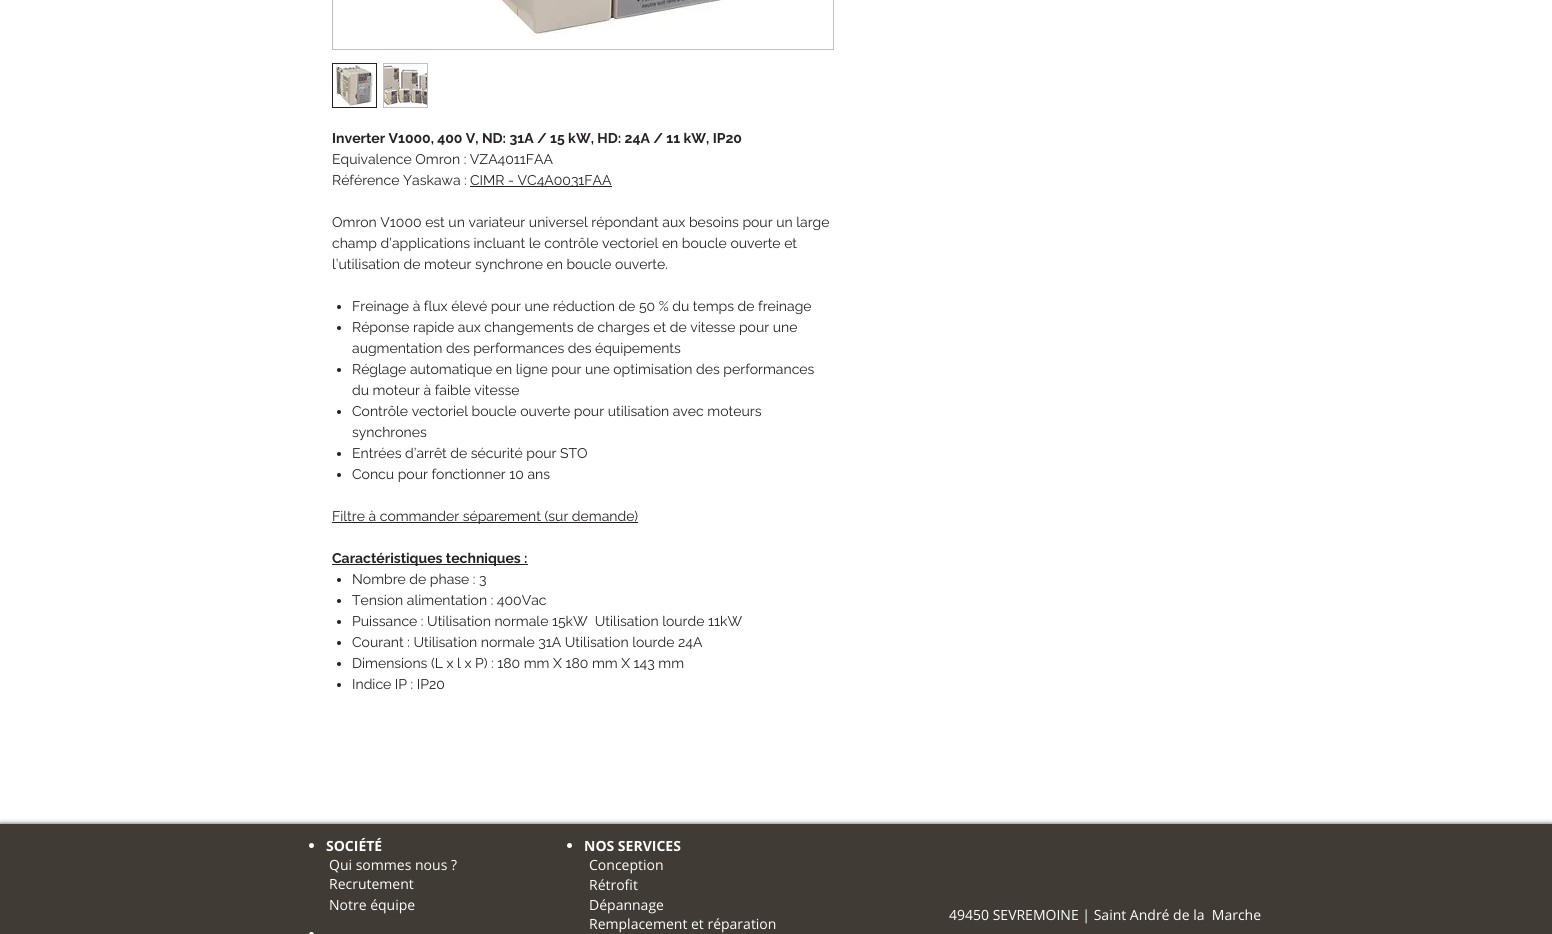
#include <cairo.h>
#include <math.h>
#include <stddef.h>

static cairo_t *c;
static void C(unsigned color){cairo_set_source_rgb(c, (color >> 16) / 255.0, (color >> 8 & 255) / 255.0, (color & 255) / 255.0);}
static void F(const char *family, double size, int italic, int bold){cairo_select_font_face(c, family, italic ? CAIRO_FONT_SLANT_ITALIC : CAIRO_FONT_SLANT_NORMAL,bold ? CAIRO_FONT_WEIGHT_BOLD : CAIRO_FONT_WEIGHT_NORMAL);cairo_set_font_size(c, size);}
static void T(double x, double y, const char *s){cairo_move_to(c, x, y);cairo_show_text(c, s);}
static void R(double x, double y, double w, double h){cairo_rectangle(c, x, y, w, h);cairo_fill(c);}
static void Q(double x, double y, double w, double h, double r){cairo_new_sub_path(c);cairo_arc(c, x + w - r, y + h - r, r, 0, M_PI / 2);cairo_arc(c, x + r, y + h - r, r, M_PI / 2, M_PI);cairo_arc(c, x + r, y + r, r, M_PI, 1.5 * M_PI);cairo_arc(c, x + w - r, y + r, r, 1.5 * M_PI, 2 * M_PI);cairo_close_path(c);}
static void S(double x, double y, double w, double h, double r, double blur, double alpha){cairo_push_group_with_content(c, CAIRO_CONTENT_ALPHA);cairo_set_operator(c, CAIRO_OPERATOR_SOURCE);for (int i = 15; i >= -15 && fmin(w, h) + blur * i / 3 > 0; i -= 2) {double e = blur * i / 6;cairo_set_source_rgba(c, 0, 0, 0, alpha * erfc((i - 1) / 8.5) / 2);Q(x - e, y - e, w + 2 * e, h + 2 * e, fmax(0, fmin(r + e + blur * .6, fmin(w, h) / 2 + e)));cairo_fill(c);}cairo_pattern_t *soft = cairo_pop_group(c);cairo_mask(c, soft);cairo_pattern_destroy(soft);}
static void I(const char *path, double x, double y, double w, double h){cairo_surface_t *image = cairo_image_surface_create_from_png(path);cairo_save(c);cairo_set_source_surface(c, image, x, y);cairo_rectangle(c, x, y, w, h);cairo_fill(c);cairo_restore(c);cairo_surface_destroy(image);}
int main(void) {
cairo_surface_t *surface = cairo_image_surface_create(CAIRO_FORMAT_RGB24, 1552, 934);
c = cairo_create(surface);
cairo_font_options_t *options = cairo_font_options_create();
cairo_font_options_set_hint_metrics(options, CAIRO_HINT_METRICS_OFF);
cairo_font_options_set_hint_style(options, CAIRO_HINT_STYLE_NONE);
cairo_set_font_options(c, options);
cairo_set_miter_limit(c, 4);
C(0xffffff);
cairo_paint(c);
cairo_rectangle(c,332.5,-.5,501,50);
C(0xc0bec0);
cairo_set_line_width(c,1);
cairo_stroke(c);
I("1.png",501,0,229,36);
cairo_rectangle(c,332.5,63.5,44,44);
C(0x262027);
cairo_stroke(c);
I("2.png",333,64,43,43);
C(0xcabdcd);
R(383,63,45,45);
I("3.png",384,64,43,43);
F("Raleway",14,0,1);
C(0x262027);
T(332,143,"Inverter V1000, 400 V, ND: 31A / 15 kW, HD: 24A / 11 kW, IP20");
F("Raleway",14,0,0);
T(332,164,"Equivalence Omron : VZA4011FAA");
T(332,185,"Référence Yaskawa :");
R(470,186,142,1);
T(470,185,"CIMR - VC4A0031FAA");
T(332,227,"Omron V1000 est un variateur universel répondant aux besoins pour un large");
T(332,248,"champ d’applications incluant le contrôle vectoriel en boucle ouverte et");
T(332,269,"l’utilisation de moteur synchrone en boucle ouverte.");
cairo_new_path(c);
cairo_arc(c,339,307,2,0,2 * M_PI);
cairo_fill(c);
T(352,311,"Freinage à flux élevé pour une réduction de 50 % du temps de freinage");
cairo_new_path(c);
cairo_arc(c,339,328,2,0,2 * M_PI);
cairo_fill(c);
T(352,332,"Réponse rapide aux changements de charges et de vitesse pour une");
T(352,353,"augmentation des performances des équipements");
cairo_new_path(c);
cairo_arc(c,339,370,2,0,2 * M_PI);
cairo_fill(c);
T(352,374,"Réglage automatique en ligne pour une optimisation des performances");
T(352,395,"du moteur à faible vitesse");
cairo_new_path(c);
cairo_arc(c,339,412,2,0,2 * M_PI);
cairo_fill(c);
T(352,416,"Contrôle vectoriel boucle ouverte pour utilisation avec moteurs");
T(352,437,"synchrones");
cairo_new_path(c);
cairo_arc(c,339,454,2,0,2 * M_PI);
cairo_fill(c);
T(352,458,"Entrées d’arrêt de sécurité pour STO");
cairo_new_path(c);
cairo_arc(c,339,475,2,0,2 * M_PI);
cairo_fill(c);
T(352,479,"Concu pour fonctionner 10 ans");
R(332,522,306,1);
T(332,521,"Filtre à commander séparement (sur demande)");
R(332,564,196,1);
F("Raleway",14,0,1);
T(332,563,"Caractéristiques techniques :");
cairo_new_path(c);
cairo_arc(c,339,580,2,0,2 * M_PI);
cairo_fill(c);
F("Raleway",14,0,0);
T(352,584,"Nombre de phase : 3");
cairo_new_path(c);
cairo_arc(c,339,601,2,0,2 * M_PI);
cairo_fill(c);
T(352,605,"Tension alimentation : 400Vac");
cairo_new_path(c);
cairo_arc(c,339,622,2,0,2 * M_PI);
cairo_fill(c);
T(352,626,"Puissance : Utilisation normale 15kW  Utilisation lourde 11kW");
cairo_new_path(c);
cairo_arc(c,339,643,2,0,2 * M_PI);
cairo_fill(c);
T(352,647,"Courant : Utilisation normale 31A Utilisation lourde 24A");
cairo_new_path(c);
cairo_arc(c,339,664,2,0,2 * M_PI);
cairo_fill(c);
T(352,668,"Dimensions (L x l x P) : 180 mm X 180 mm X 143 mm");
cairo_new_path(c);
cairo_arc(c,339,685,2,0,2 * M_PI);
cairo_fill(c);
T(352,689,"Indice IP : IP20");
C(0x000000);
S(0,824,1552,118,0,2.5,.7);
C(0x403b35);
R(0,824,1552,110);
C(0xffffff);
cairo_arc(c,311.5,845.5,2.5,0,2 * M_PI);
cairo_fill(c);
F("Open Sans",14,0,1);
T(326,851,"SOCIÉTÉ");
cairo_new_path(c);
cairo_arc(c,569.5,845.5,2.5,0,2 * M_PI);
cairo_fill(c);
T(584,851,"NOS SERVICES");
F("Open Sans",14,0,0);
T(329,870,"Qui sommes nous ?");
T(589,870,"Conception");
T(329,889,"Recrutement");
T(589,890,"Rétrofit");
T(329,910,"Notre équipe");
T(589,910,"Dépannage");
T(949,920,"49450 SEVREMOINE | Saint André de la  Marche");
T(589,929,"Remplacement et réparation");
cairo_new_path(c);
cairo_arc(c,311.5,934.5,2.5,0,2 * M_PI);
cairo_fill(c);
cairo_surface_write_to_png(surface, "o.png");
cairo_font_options_destroy(options);
cairo_destroy(c);
cairo_surface_destroy(surface);
return 0;
}
